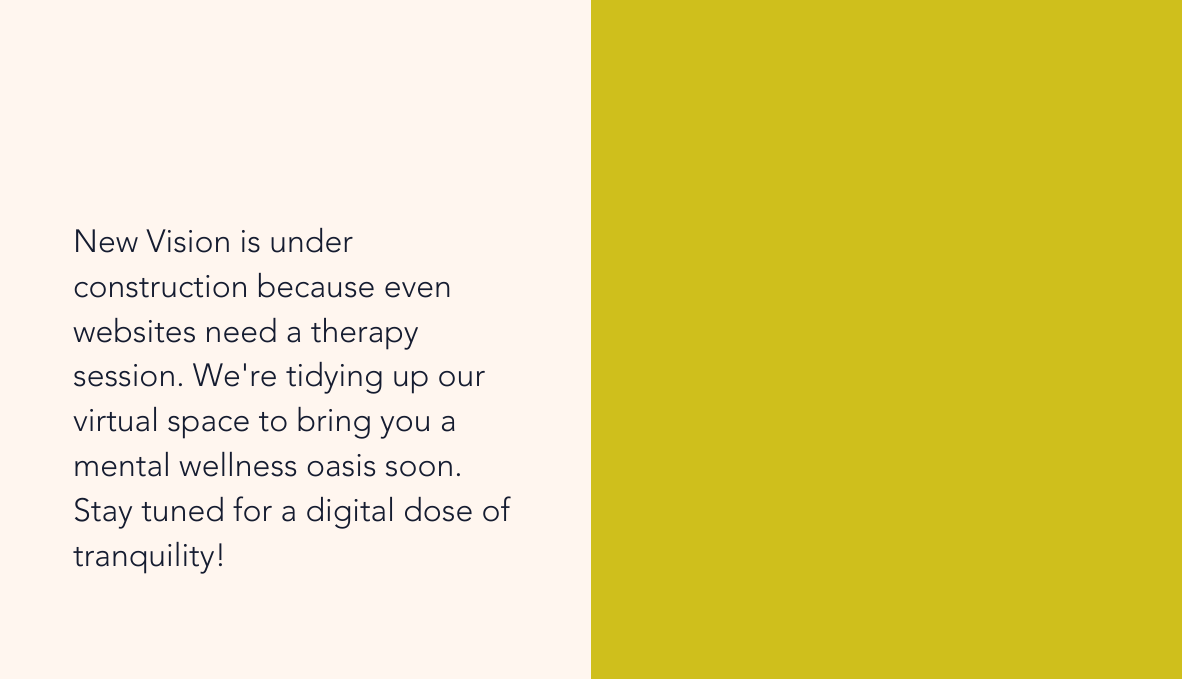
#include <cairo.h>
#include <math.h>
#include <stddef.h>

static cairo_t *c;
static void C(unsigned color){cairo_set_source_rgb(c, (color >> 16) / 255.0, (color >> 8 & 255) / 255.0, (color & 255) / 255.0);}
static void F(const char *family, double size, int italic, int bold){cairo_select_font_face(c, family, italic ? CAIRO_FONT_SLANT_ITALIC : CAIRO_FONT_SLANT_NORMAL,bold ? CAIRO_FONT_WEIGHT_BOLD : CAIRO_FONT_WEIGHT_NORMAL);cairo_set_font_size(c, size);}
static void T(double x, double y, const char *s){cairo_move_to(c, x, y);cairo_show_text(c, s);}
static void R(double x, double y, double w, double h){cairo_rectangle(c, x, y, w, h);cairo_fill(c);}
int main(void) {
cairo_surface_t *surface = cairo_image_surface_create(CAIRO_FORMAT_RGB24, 1182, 679);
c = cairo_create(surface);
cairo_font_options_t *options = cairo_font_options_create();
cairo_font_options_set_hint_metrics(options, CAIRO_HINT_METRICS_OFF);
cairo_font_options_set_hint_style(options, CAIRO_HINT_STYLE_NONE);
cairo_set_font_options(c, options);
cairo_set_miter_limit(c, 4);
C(0xfff6ef);
cairo_paint(c);
F("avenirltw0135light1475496 Light",32,0,0);
C(0x151c30);
T(73,252,"New Vision is under");
T(73,297,"construction because even");
T(73,342,"websites need a therapy");
T(73,386,"session. We're tidying up our");
T(73,431,"virtual space to bring you a");
T(73,476,"mental wellness oasis soon.");
T(73,521,"Stay tuned for a digital dose of");
T(73,566,"tranquility!");
C(0xcfbf1c);
R(591,0,591,679);
cairo_surface_write_to_png(surface, "o.png");
cairo_font_options_destroy(options);
cairo_destroy(c);
cairo_surface_destroy(surface);
return 0;
}
